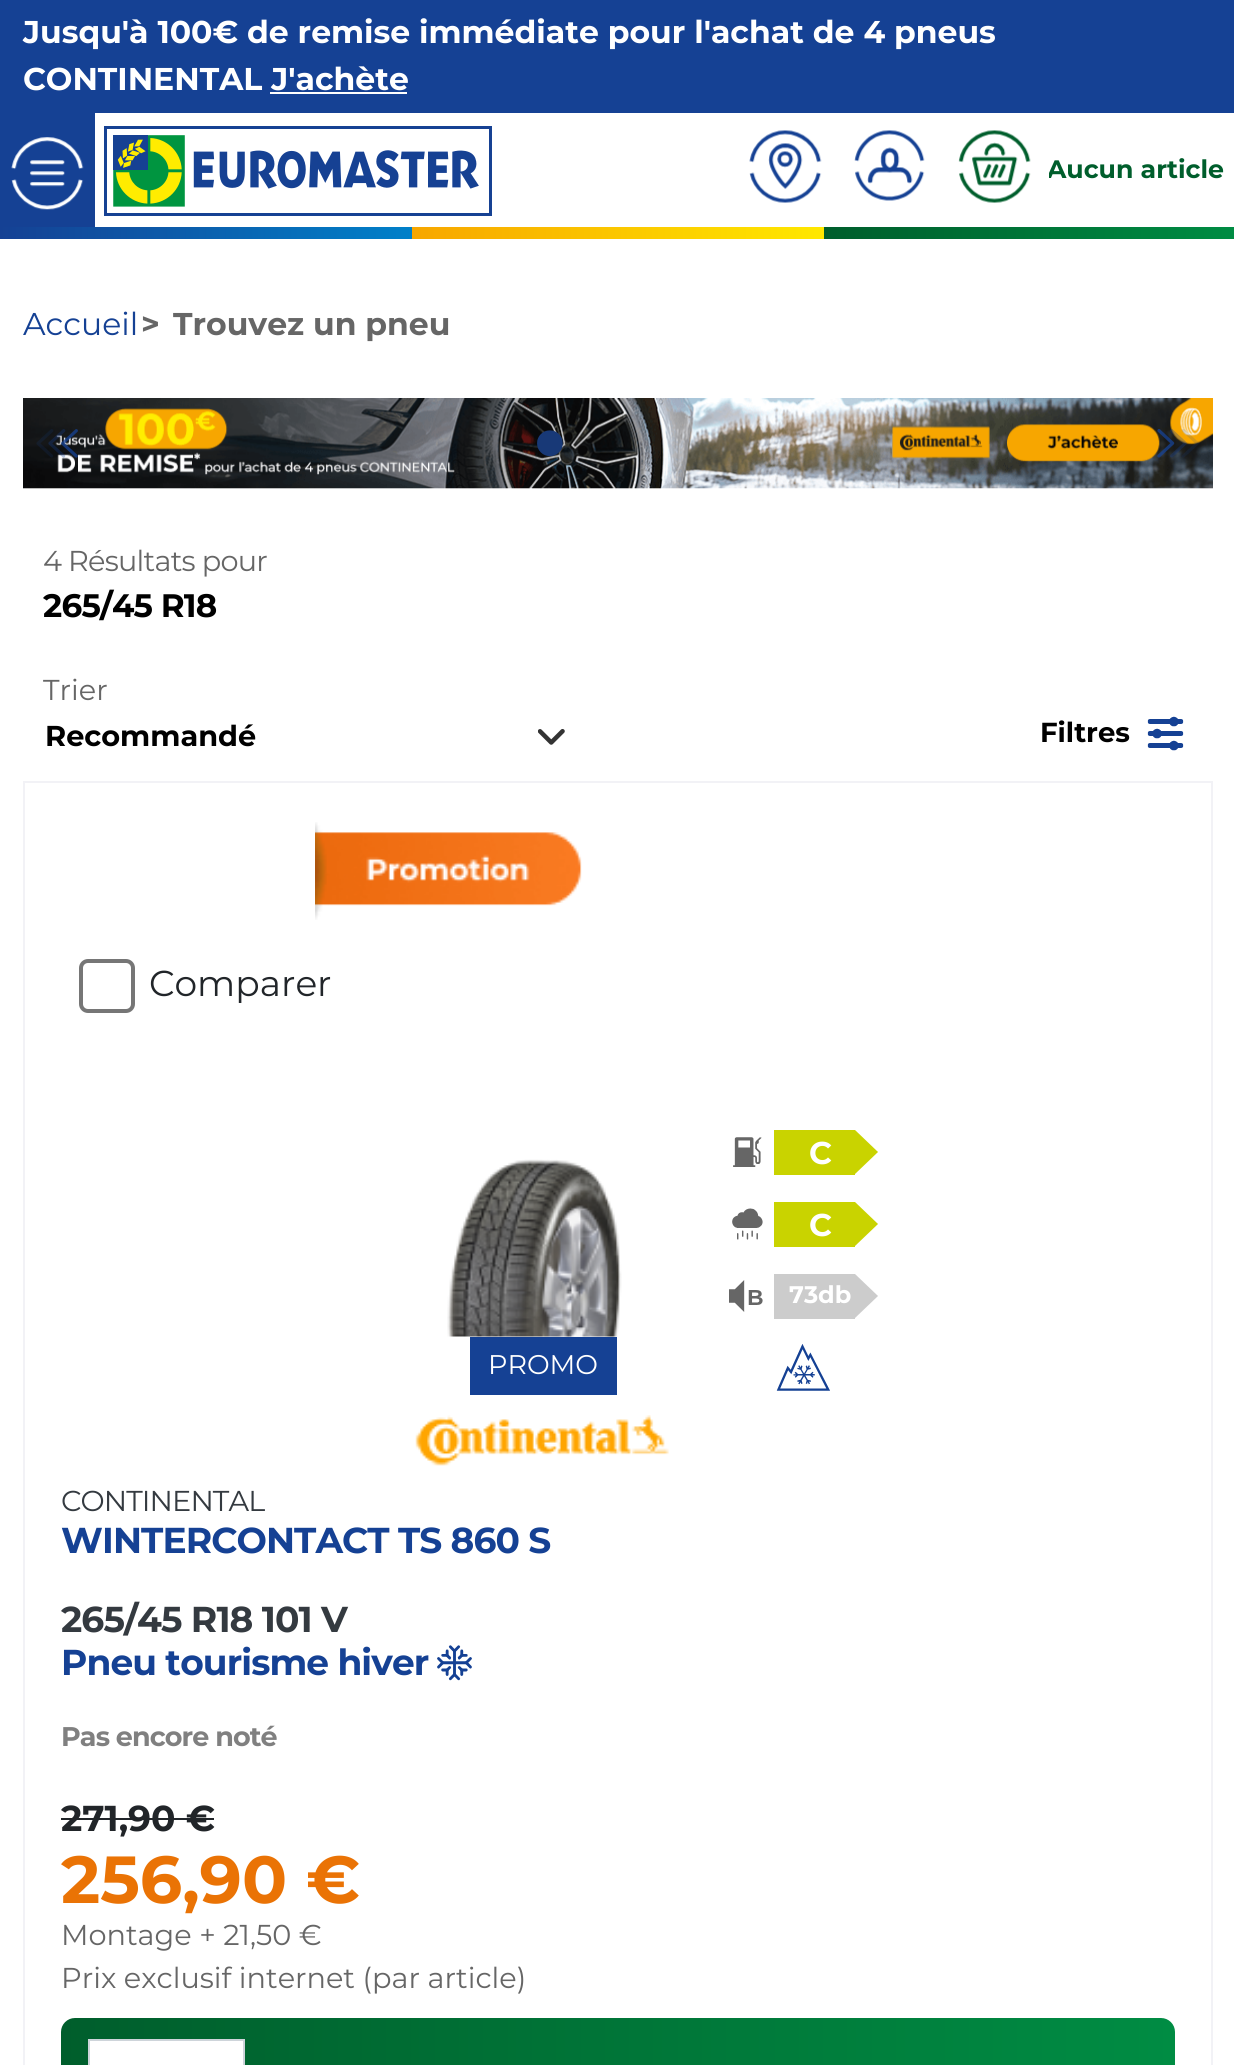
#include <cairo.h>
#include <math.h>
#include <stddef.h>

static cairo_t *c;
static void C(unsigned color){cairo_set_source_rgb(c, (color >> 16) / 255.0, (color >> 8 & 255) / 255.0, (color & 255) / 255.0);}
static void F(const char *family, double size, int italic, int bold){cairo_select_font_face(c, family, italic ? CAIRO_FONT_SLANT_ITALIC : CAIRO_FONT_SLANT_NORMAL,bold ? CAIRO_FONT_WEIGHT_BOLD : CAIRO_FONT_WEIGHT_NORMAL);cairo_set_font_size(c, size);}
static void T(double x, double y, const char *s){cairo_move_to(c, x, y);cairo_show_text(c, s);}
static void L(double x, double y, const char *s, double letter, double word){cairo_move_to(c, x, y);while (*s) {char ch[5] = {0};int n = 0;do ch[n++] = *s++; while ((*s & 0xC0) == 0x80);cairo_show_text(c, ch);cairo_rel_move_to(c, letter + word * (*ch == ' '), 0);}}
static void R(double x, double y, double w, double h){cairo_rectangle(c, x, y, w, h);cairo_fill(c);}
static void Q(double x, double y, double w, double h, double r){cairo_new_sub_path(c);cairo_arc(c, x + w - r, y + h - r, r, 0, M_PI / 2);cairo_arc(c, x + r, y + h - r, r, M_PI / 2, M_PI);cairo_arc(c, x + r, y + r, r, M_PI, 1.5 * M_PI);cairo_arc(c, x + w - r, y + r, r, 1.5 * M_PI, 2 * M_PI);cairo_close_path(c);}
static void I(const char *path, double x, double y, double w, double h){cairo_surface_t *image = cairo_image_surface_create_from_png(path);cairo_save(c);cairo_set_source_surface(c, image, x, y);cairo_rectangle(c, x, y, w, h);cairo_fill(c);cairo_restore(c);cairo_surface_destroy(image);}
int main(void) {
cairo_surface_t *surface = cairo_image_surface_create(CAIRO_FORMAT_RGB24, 1234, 2065);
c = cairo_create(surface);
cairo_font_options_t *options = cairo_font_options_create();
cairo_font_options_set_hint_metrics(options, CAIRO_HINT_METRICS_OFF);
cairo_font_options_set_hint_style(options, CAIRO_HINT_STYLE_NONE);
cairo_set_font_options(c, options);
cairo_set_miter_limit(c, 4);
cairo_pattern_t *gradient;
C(0xffffff);
cairo_paint(c);
C(0x154194);
R(0,0,1234,113);
F("Montserrat",31.5,0,1);
C(0xffffff);
T(23,43,"Jusqu'à 100€ de remise immédiate pour l'achat de 4 pneus");
T(23,90,"CONTINENTAL J'achète");
R(270,92,137,2);
C(0x154194);
R(0,113,95,114);
I("1.png",11,137,73,73);
I("2.png",104,126,388,90);
I("3.png",749,130,73,73);
I("4.png",854,130,71,71);
I("5.png",958,130,73,73);
cairo_save(c);
cairo_rectangle(c,1049,151,175,38);
cairo_clip(c);
F("Montserrat",25.25,0,1);
C(0x005e2c);
T(1047,178,"Aucun article");
cairo_restore(c);
gradient = cairo_pattern_create_linear(0,233,412,233);
cairo_pattern_add_color_stop_rgba(gradient,0,0.082,0.255,0.58,1);
cairo_pattern_add_color_stop_rgba(gradient,1,0,0.502,0.788,1);
cairo_set_source(c,gradient);
cairo_pattern_destroy(gradient);
R(0,227,412,12);
gradient = cairo_pattern_create_linear(412,233,824,233);
cairo_pattern_add_color_stop_rgba(gradient,0,0.969,0.651,0,1);
cairo_pattern_add_color_stop_rgba(gradient,1,1,0.91,0,1);
cairo_set_source(c,gradient);
cairo_pattern_destroy(gradient);
R(412,227,412,12);
gradient = cairo_pattern_create_linear(824,233,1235,233);
cairo_pattern_add_color_stop_rgba(gradient,0,0,0.369,0.173,1);
cairo_pattern_add_color_stop_rgba(gradient,1,0,0.549,0.263,1);
cairo_set_source(c,gradient);
cairo_pattern_destroy(gradient);
R(824,227,410,12);
F("Montserrat",31.5,0,0);
C(0x154194);
T(23,335,"Accueil");
F("Montserrat",31.5,0,1);
C(0x666666);
T(141,335,">");
T(173,335,"Trouvez un pneu");
I("6.png",23,398,1190,91);
I("7.png",36,429,42,29);
F("Liberation Serif",108,0,0);
C(0x183977);
T(531,479,"•");
I("8.png",1157,429,42,29);
F("Montserrat",28.75,0,0);
C(0x666666);
L(43,571,"4 Résultats pour",-.75,0);
F("Montserrat",32.5,0,1);
C(0x000000);
L(43,617,"265/45 R18",-.75,0);
F("Montserrat",28.75,0,0);
C(0x666666);
T(43,700,"Trier");
F("Montserrat",28.75,0,1);
C(0x000000);
T(45,746,"Recommandé");
I("9.png",538,729,27,16);
F("Montserrat",27.5,0,1);
T(1040,742,"Filtres");
I("10.png",1147,716,37,35);
cairo_rectangle(c,24,782,1188,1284);
C(0xf2f2f6);
cairo_stroke(c);
I("11.png",315,822,267,98);
Q(81,961,52,50,7);
C(0x767676);
cairo_set_line_width(c,4);
cairo_stroke(c);
F("Montserrat",36,0,0);
C(0x212529);
T(149,996,"Comparer");
I("12.png",733,1137,29,30);
C(0xc9d300);
R(774,1130,81,45);
F("Montserrat",31.5,0,1);
C(0xffffff);
T(809,1164,"C");
C(0xc9d300);
cairo_new_path(c);
cairo_move_to(c,855,1174);
cairo_line_to(c,855,1130);
cairo_line_to(c,878,1152);
cairo_close_path(c);
cairo_fill(c);
I("13.png",732,1208,31,32);
R(774,1202,81,45);
C(0xffffff);
T(809,1236,"C");
C(0xc9d300);
cairo_new_path(c);
cairo_move_to(c,855,1246);
cairo_line_to(c,855,1202);
cairo_line_to(c,878,1224);
cairo_close_path(c);
cairo_fill(c);
I("14.png",729,1280,34,32);
C(0xcccccc);
R(774,1274,81,45);
F("Montserrat",24,0,1);
C(0xffffff);
T(789,1303,"73db");
C(0xcccccc);
cairo_new_path(c);
cairo_move_to(c,855,1318);
cairo_line_to(c,855,1274);
cairo_line_to(c,878,1296);
cairo_close_path(c);
cairo_fill(c);
I("15.png",776,1344,54,47);
I("16.png",447,1159,175,178);
C(0x154194);
R(470,1337,147,58);
F("Montserrat",27,0,0);
C(0xffffff);
T(488,1374,"PROMO");
I("17.png",415,1415,254,51);
F("Montserrat",28.75,0,0);
C(0x343a40);
L(61,1511,"CONTINENTAL",-.9,0);
F("Montserrat",36,0,1);
C(0x154194);
L(61,1553,"WINTERCONTACT TS 860 S",-.9,0);
C(0x343a40);
L(61,1632,"265/45 R18 101 V",-.9,0);
C(0x154194);
L(61,1675,"Pneu tourisme hiver",-.9,0);
I("18.png",437,1645,35,36);
F("Montserrat",27,0,1);
C(0x808080);
L(61,1746,"Pas encore noté",-.9,0);
F("Montserrat",36,0,1);
C(0x212529);
T(61,1831,"271,90 €");
R(61,1818,153,2);
F("Montserrat",66.5,0,1);
C(0xea7305);
T(61,1903,"256,90 €");
F("Montserrat",28.75,0,0);
C(0x666666);
T(61,1945,"Montage + 21,50 €");
T(61,1988,"Prix exclusif internet (par article)");
gradient = cairo_pattern_create_linear(61,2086,1175,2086);
cairo_pattern_add_color_stop_rgba(gradient,0,0,0.369,0.173,1);
cairo_pattern_add_color_stop_rgba(gradient,1,0,0.549,0.263,1);
cairo_set_source(c,gradient);
cairo_pattern_destroy(gradient);
Q(61,2018,1114,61,14);
cairo_fill(c);
C(0xffffff);
cairo_rectangle(c,89,2040,155,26);
cairo_fill_preserve(c);
C(0xced4da);
cairo_set_line_width(c,2);
cairo_stroke(c);
cairo_surface_write_to_png(surface, "o.png");
cairo_font_options_destroy(options);
cairo_destroy(c);
cairo_surface_destroy(surface);
return 0;
}
